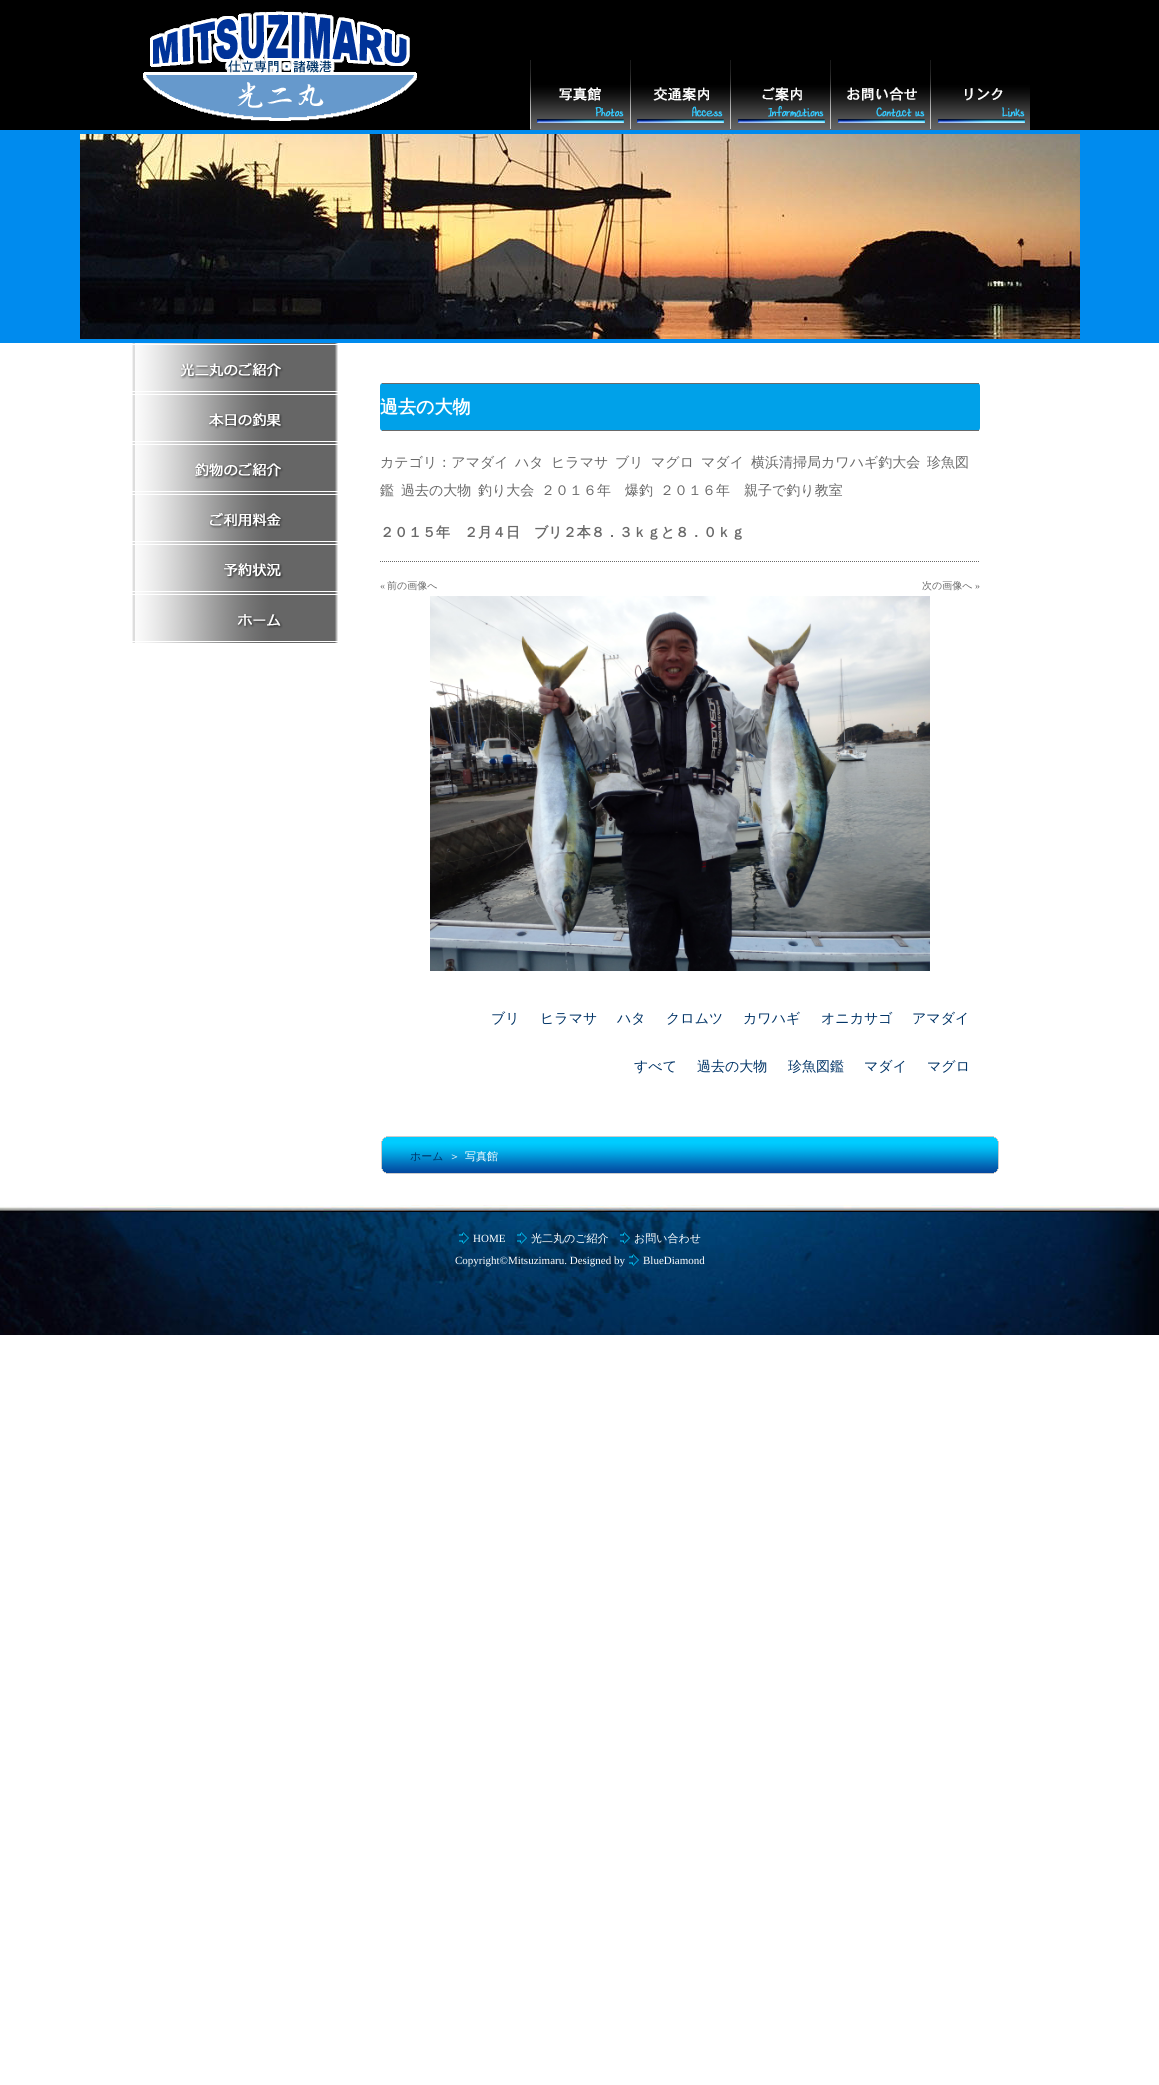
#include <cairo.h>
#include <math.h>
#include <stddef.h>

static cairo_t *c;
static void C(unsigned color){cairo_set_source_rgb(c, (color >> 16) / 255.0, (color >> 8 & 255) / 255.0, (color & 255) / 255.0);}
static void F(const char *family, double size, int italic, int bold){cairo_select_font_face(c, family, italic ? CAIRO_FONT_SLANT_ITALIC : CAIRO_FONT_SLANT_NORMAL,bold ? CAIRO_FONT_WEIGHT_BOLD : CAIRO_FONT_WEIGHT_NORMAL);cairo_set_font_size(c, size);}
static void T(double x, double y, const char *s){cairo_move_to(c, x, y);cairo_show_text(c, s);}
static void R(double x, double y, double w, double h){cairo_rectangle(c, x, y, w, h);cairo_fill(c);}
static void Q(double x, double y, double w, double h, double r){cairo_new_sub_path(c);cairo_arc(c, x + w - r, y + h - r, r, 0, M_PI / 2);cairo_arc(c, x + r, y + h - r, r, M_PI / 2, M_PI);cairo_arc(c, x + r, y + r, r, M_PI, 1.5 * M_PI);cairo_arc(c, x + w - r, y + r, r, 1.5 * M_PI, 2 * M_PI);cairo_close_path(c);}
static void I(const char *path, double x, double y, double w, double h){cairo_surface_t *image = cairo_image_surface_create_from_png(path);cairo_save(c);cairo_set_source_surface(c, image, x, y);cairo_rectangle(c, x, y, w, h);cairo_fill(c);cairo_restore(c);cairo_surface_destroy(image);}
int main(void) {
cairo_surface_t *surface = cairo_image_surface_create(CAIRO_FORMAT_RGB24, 1159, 2085);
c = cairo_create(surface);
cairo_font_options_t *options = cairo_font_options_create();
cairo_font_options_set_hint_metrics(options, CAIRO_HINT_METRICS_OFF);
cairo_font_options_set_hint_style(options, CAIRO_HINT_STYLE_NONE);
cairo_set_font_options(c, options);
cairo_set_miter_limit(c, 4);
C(0xffffff);
cairo_paint(c);
C(0x000000);
R(0,0,1159,130);
I("1.png",143,11,274,110);
I("2.png",530,60,100,70);
I("3.png",630,60,100,70);
I("4.png",730,60,100,70);
I("5.png",830,60,100,70);
I("6.png",930,60,100,70);
C(0x008bee);
R(0,130,1159,213);
I("7.png",80,134,1000,205);
I("8.png",132,343,206,50);
I("9.png",132,393,206,50);
I("10.png",132,443,206,50);
I("11.png",132,493,206,50);
I("12.png",132,543,206,50);
I("13.png",132,593,206,50);
C(0x00a1e9);
Q(380,383,600,48,3);
cairo_fill(c);
C(0x696969);
R(382,383,597,1);
R(382,430,597,1);
F("WenQuanYi Zen Hei",18,0,1);
C(0xffffff);
T(380,413,"過去の大物");
F("WenQuanYi Zen Hei Medium",14,0,0);
C(0x696969);
T(380,467,"カテゴリ：アマダイ");
T(515,467,"ハタ");
T(551,467,"ヒラマサ");
T(615,467,"ブリ");
T(651,467,"マグロ");
T(701,467,"マダイ");
T(751,467,"横浜清掃局カワハギ釣大会");
T(927,467,"珍魚図");
T(380,495,"鑑");
T(401,495,"過去の大物");
T(478,495,"釣り大会");
T(541,495,"２０１６年　爆釣");
T(660,495,"２０１６年　親子で釣り教室");
F("WenQuanYi Zen Hei",14,0,1);
T(380,537,"２０１５年　２月４日　ブリ２本８．３ｋｇと８．０ｋｇ");
cairo_new_path(c);
cairo_move_to(c,380,561.5);
cairo_line_to(c,980,561.5);
cairo_set_line_width(c,1);
cairo_set_dash(c,(double[]){1,1},2,0);
cairo_stroke(c);
F("Liberation Serif",10,0,0);
T(380,589,"«");
F("WenQuanYi Zen Hei Medium",10,0,0);
T(387,589,"前の画像へ");
T(922,589,"次の画像へ");
F("Liberation Serif",10,0,0);
T(975,589,"»");
I("14.png",430,596,500,375);
F("WenQuanYi Zen Hei Medium",14,0,0);
C(0x003366);
T(491,1023,"ブリ");
T(540,1023,"ヒラマサ");
T(617,1023,"ハタ");
T(666,1023,"クロムツ");
T(743,1023,"カワハギ");
T(821,1023,"オニカサゴ");
T(912,1023,"アマダイ");
T(634,1071,"すべて");
T(697,1071,"過去の大物");
T(788,1071,"珍魚図鑑");
T(864,1071,"マダイ");
T(927,1071,"マグロ");
I("15.png",381,1136,618,38);
F("WenQuanYi Zen Hei Medium",11,0,0);
T(410,1160,"ホーム");
C(0xffffff);
T(449,1160,"＞");
T(465,1160,"写真館");
I("16.png",0,1205,1159,130);
I("17.png",459,1232,10,12);
F("Liberation Serif",11,0,0);
T(473,1242,"HOME");
I("18.png",517,1232,10,12);
F("WenQuanYi Zen Hei Medium",11,0,0);
T(531,1242,"光二丸のご紹介");
I("19.png",620,1232,10,12);
T(634,1242,"お問い合わせ");
F("Liberation Serif",11,0,0);
T(455,1264,"Copyright©Mitsuzimaru. Designed by");
I("20.png",629,1254,10,12);
T(643,1264,"BlueDiamond");
cairo_surface_write_to_png(surface, "o.png");
cairo_font_options_destroy(options);
cairo_destroy(c);
cairo_surface_destroy(surface);
return 0;
}
